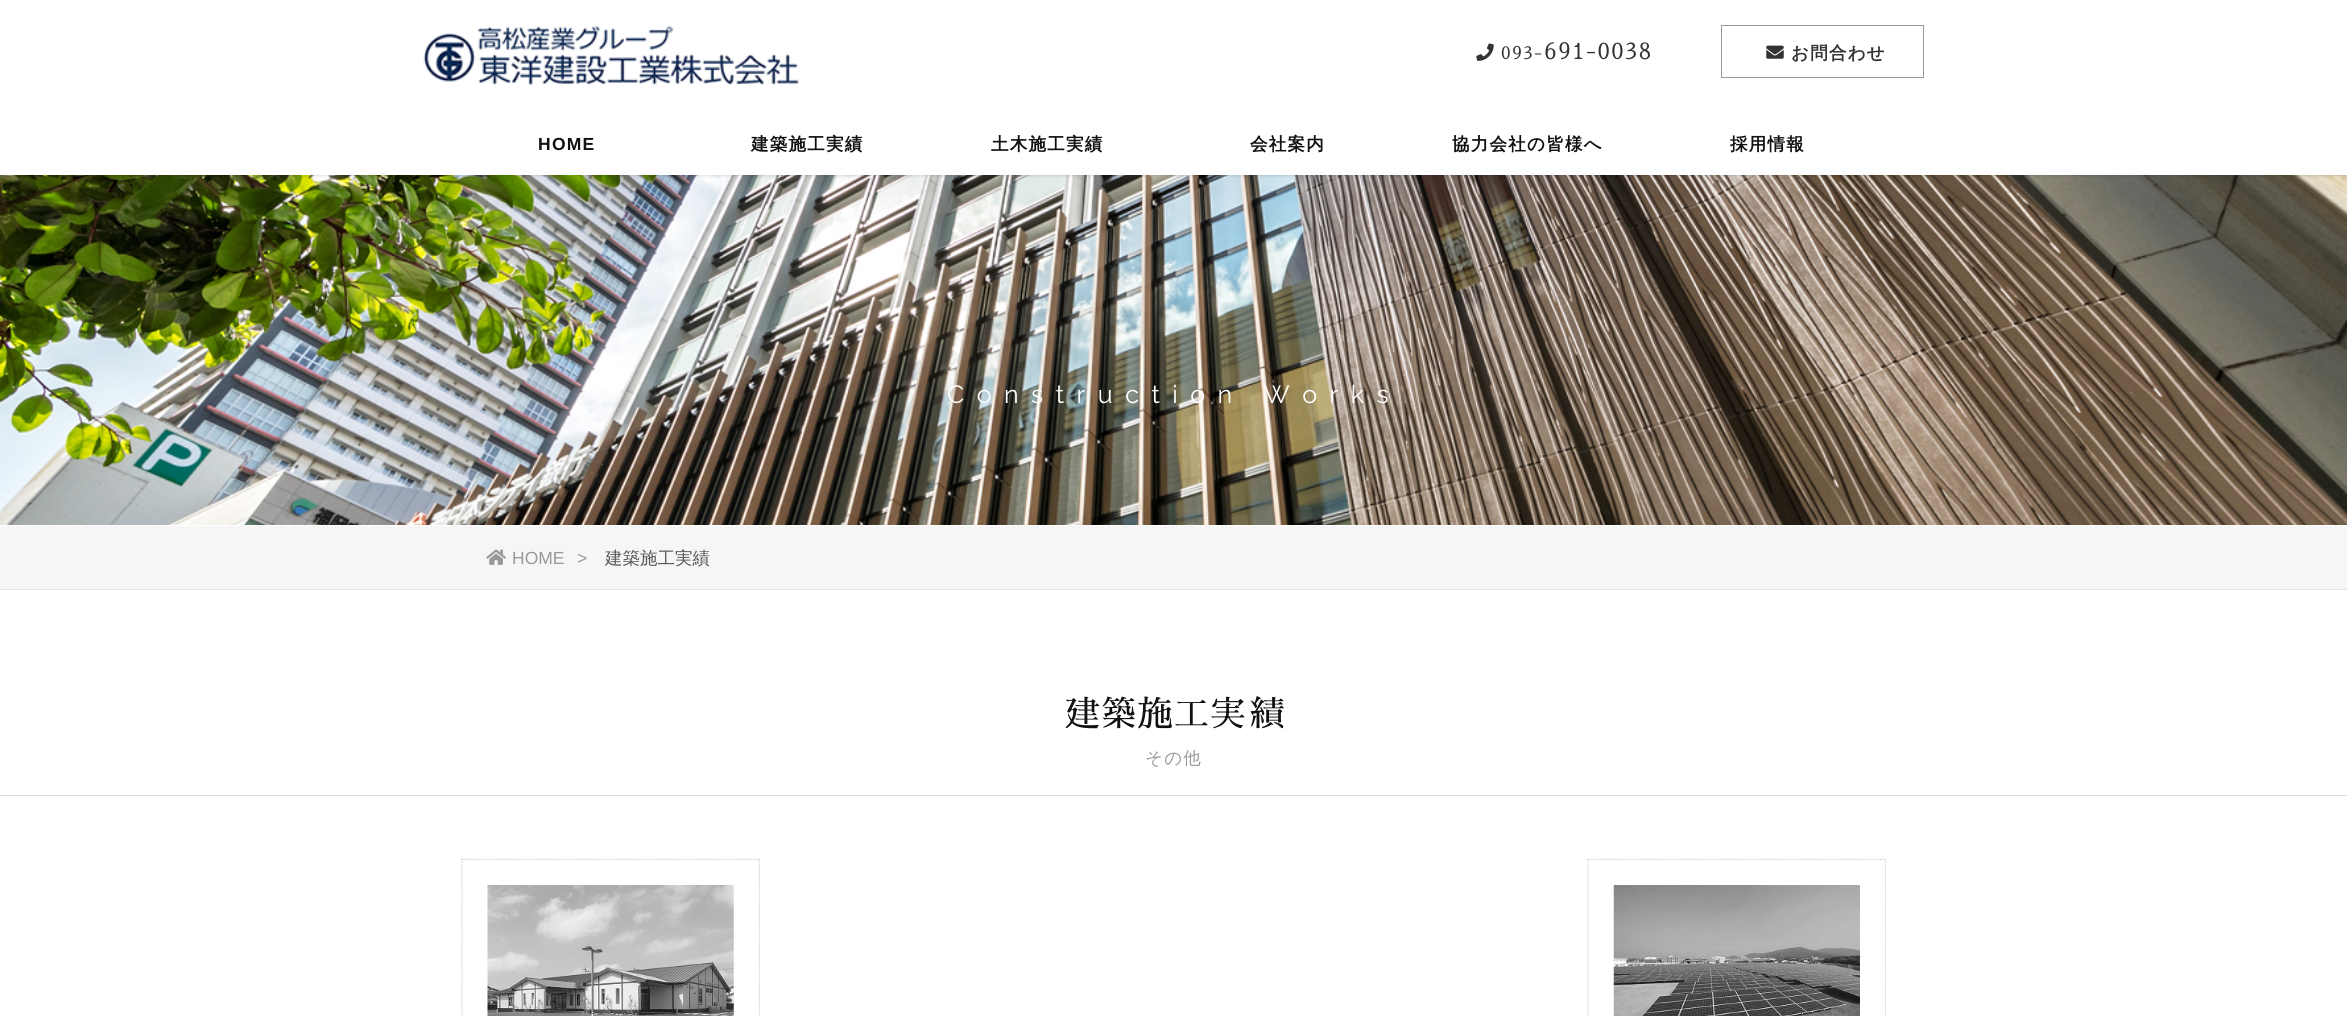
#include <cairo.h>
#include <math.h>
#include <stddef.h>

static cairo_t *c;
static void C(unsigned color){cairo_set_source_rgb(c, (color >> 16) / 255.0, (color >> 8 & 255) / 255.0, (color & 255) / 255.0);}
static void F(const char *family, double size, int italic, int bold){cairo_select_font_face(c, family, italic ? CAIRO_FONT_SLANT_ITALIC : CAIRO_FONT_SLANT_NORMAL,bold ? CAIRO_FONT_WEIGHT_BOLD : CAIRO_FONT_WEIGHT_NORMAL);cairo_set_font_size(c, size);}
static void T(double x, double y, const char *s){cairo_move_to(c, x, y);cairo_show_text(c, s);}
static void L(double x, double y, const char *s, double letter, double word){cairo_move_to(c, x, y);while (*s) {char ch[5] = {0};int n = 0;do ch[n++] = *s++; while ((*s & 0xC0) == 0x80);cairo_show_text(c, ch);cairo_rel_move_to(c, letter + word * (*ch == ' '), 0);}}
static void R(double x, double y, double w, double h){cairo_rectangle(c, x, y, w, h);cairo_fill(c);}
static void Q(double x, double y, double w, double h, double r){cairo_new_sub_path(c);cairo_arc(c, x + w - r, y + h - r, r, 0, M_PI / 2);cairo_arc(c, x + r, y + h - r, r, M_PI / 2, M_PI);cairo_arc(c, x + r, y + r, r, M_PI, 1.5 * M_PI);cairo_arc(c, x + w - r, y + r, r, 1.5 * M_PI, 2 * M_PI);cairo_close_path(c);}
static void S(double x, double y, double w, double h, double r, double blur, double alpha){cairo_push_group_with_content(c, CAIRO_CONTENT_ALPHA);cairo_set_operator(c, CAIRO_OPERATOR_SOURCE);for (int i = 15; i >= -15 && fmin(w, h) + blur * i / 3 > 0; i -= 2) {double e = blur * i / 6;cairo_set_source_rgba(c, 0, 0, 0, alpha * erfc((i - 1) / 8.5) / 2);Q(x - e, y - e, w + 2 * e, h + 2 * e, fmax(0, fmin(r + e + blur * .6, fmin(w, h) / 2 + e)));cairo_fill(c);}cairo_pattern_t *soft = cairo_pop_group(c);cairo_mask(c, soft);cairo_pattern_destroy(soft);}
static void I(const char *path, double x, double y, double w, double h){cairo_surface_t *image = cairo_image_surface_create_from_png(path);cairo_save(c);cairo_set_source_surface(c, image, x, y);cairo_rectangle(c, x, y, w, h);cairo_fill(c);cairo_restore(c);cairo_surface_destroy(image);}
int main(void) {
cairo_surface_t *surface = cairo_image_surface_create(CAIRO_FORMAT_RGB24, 2347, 1016);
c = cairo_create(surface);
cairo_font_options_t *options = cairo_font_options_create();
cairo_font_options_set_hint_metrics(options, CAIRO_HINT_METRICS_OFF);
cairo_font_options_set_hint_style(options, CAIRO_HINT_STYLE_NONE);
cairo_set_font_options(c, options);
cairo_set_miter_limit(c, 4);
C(0xffffff);
cairo_paint(c);
I("4.png",0,175,2347,350);
C(0x000000);
S(0,0,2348,175,0,2,.2);
C(0xffffff);
R(0,0,2347,175);
I("1.png",423,26,376,60);
I("2.png",1476,43,18,18);
F("Sawarabi Mincho",17.5,0,0);
C(0x333333);
L(1501,59,"093-",1.25,0);
F("Sawarabi Mincho",22.5,0,0);
L(1544,59,"691-0038",1.25,0);
cairo_rectangle(c,1721.5,25.5,202,52);
C(0x999999);
cairo_set_line_width(c,1);
cairo_stroke(c);
I("3.png",1766,45,18,14);
F("WenQuanYi Zen Hei",17.5,0,1);
C(0x333333);
L(1791,59,"お問合わせ",1.25,0);
F("Liberation Sans",17.5,0,1);
C(0x111111);
L(538,150,"HOME",1.25,0);
F("WenQuanYi Zen Hei",17.5,0,1);
L(751,150,"建築施工実績",1.25,0);
L(991,150,"土木施工実績",1.25,0);
L(1250,150,"会社案内",1.25,0);
L(1452,150,"協力会社の皆様へ",1.25,0);
L(1730,150,"採用情報",1.25,0);
F("Raleway Thin",25,0,0);
C(0xffffff);
L(947,403,"Construction Works",12.5,0);
C(0xf6f6f6);
R(0,526,2347,63);
C(0xe5e5e5);
R(0,589,2347,1);
I("5.png",486,549,20,16);
F("Liberation Sans",17.5,0,0);
C(0x999999);
T(512,564,"HOME");
T(577,564,">");
F("WenQuanYi Zen Hei Medium",17.5,0,0);
C(0x555555);
T(605,564,"建築施工実績");
C(0xdddddd);
R(0,795,2347,1);
F("Sawarabi Mincho",35,0,0);
C(0x111111);
L(1065,726,"建築施工実績",1.25,0);
F("WenQuanYi Zen Hei Medium",17.5,0,0);
C(0x999999);
L(1145,764,"その他",1.25,0);
cairo_new_path(c);
cairo_move_to(c,461,859.5);
cairo_line_to(c,760,859.5);
C(0xcccccc);
cairo_set_line_width(c,1.2);
cairo_set_dash(c,(double[]){1.25,1.25},2,0);
cairo_stroke(c);
cairo_new_path(c);
cairo_move_to(c,759.5,859);
cairo_line_to(c,759.5,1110);
cairo_stroke(c);
cairo_new_path(c);
cairo_move_to(c,462,859);
cairo_line_to(c,462,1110);
cairo_stroke(c);
I("6.png",487,885,247,131);
cairo_new_path(c);
cairo_move_to(c,1587.5,859.5);
cairo_line_to(c,1886,859.5);
cairo_stroke(c);
cairo_new_path(c);
cairo_move_to(c,1885.5,859);
cairo_line_to(c,1885.5,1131);
cairo_stroke(c);
cairo_new_path(c);
cairo_move_to(c,1588,859);
cairo_line_to(c,1588,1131);
cairo_stroke(c);
I("7.png",1613,885,247,131);
cairo_surface_write_to_png(surface, "o.png");
cairo_font_options_destroy(options);
cairo_destroy(c);
cairo_surface_destroy(surface);
return 0;
}
